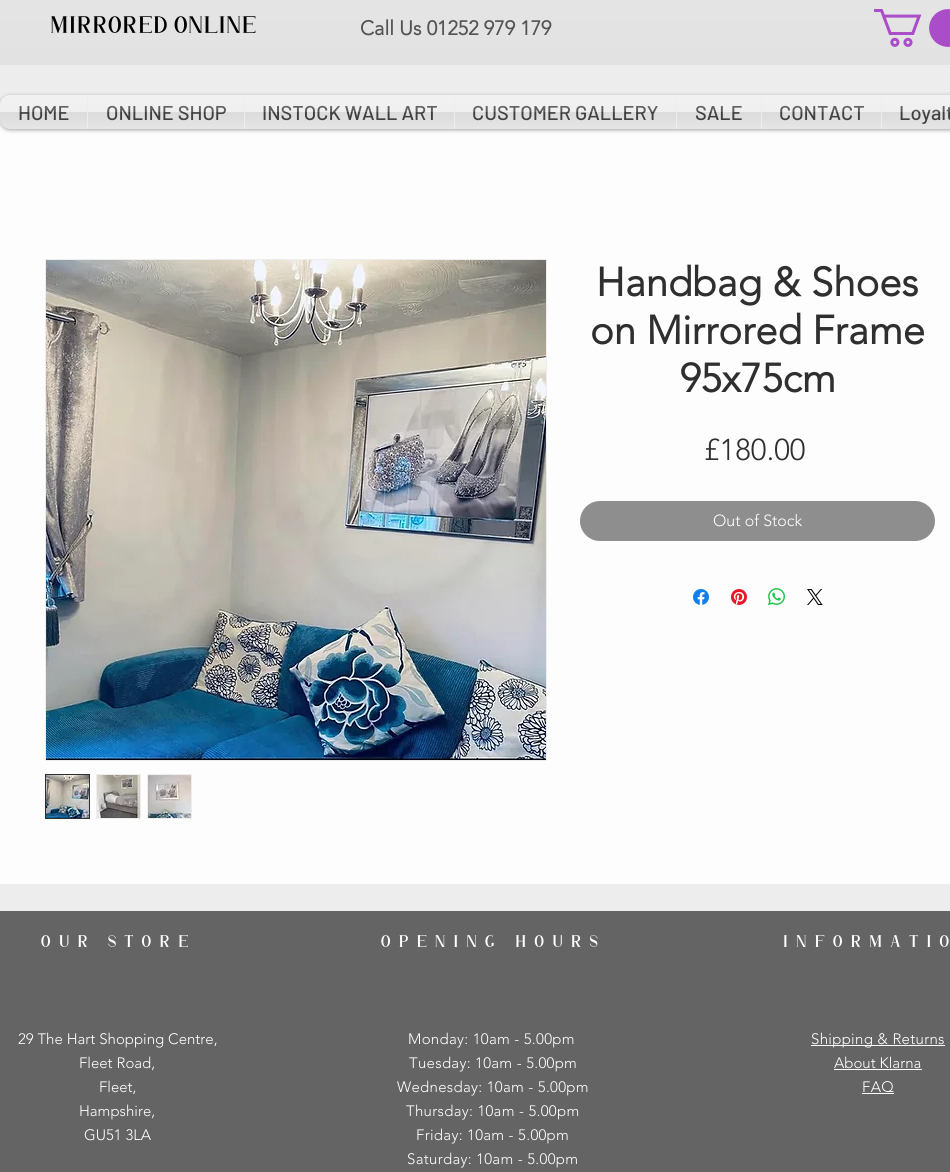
#include <cairo.h>
#include <math.h>
#include <stddef.h>

static cairo_t *c;
static void C(unsigned color){cairo_set_source_rgb(c, (color >> 16) / 255.0, (color >> 8 & 255) / 255.0, (color & 255) / 255.0);}
static void F(const char *family, double size, int italic, int bold){cairo_select_font_face(c, family, italic ? CAIRO_FONT_SLANT_ITALIC : CAIRO_FONT_SLANT_NORMAL,bold ? CAIRO_FONT_WEIGHT_BOLD : CAIRO_FONT_WEIGHT_NORMAL);cairo_set_font_size(c, size);}
static void T(double x, double y, const char *s){cairo_move_to(c, x, y);cairo_show_text(c, s);}
static void L(double x, double y, const char *s, double letter, double word){cairo_move_to(c, x, y);while (*s) {char ch[5] = {0};int n = 0;do ch[n++] = *s++; while ((*s & 0xC0) == 0x80);cairo_show_text(c, ch);cairo_rel_move_to(c, letter + word * (*ch == ' '), 0);}}
static void R(double x, double y, double w, double h){cairo_rectangle(c, x, y, w, h);cairo_fill(c);}
static void Q(double x, double y, double w, double h, double r){cairo_new_sub_path(c);cairo_arc(c, x + w - r, y + h - r, r, 0, M_PI / 2);cairo_arc(c, x + r, y + h - r, r, M_PI / 2, M_PI);cairo_arc(c, x + r, y + r, r, M_PI, 1.5 * M_PI);cairo_arc(c, x + w - r, y + r, r, 1.5 * M_PI, 2 * M_PI);cairo_close_path(c);}
static void S(double x, double y, double w, double h, double r, double blur, double alpha){cairo_push_group_with_content(c, CAIRO_CONTENT_ALPHA);cairo_set_operator(c, CAIRO_OPERATOR_SOURCE);for (int i = 15; i >= -15 && fmin(w, h) + blur * i / 3 > 0; i -= 2) {double e = blur * i / 6;cairo_set_source_rgba(c, 0, 0, 0, alpha * erfc((i - 1) / 8.5) / 2);Q(x - e, y - e, w + 2 * e, h + 2 * e, fmax(0, fmin(r + e + blur * .6, fmin(w, h) / 2 + e)));cairo_fill(c);}cairo_pattern_t *soft = cairo_pop_group(c);cairo_mask(c, soft);cairo_pattern_destroy(soft);}
static void I(const char *path, double x, double y, double w, double h){cairo_surface_t *image = cairo_image_surface_create_from_png(path);cairo_save(c);cairo_set_source_surface(c, image, x, y);cairo_rectangle(c, x, y, w, h);cairo_fill(c);cairo_restore(c);cairo_surface_destroy(image);}
int main(void) {
cairo_surface_t *surface = cairo_image_surface_create(CAIRO_FORMAT_RGB24, 950, 1172);
c = cairo_create(surface);
cairo_font_options_t *options = cairo_font_options_create();
cairo_font_options_set_hint_metrics(options, CAIRO_HINT_METRICS_OFF);
cairo_font_options_set_hint_style(options, CAIRO_HINT_STYLE_NONE);
cairo_set_font_options(c, options);
cairo_set_miter_limit(c, 4);
C(0xededee);
cairo_paint(c);
C(0xdbdbdb);
R(0,0,950,65);
I("2.png",0,0,950,65);
I("1.png",51,16,205,17);
F("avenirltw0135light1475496",20,0,1);
C(0x555252);
T(360,35,"Call Us 01252 979 179");
I("3.png",874,9,76,38);
C(0xfdfdfd);
R(0,119,950,765);
C(0x646464);
S(0,96,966,34,10,2,.6);
I("4.png",0,95,10,34);
C(0xededee);
cairo_new_path(c);
cairo_move_to(c,10,95);
cairo_line_to(c,87,95);
cairo_line_to(c,87,129);
cairo_line_to(c,10,129);
cairo_curve_to(c,4.5,129,0,124.5,0,119);
cairo_line_to(c,0,105);
cairo_curve_to(c,0,99.5,4.5,95,10,95);
cairo_close_path(c);
cairo_fill(c);
F("Barlow Medium",20,0,0);
C(0x444444);
T(18,120,"HOME");
I("5.png",0,95,87,34);
C(0xededee);
R(87,95,863,34);
C(0x444444);
T(106,120,"ONLINE SHOP");
I("6.png",88,95,156,34);
T(262,120,"INSTOCK WALL ART");
I("7.png",245,95,209,34);
T(472,120,"CUSTOMER GALLERY");
I("8.png",455,95,221,34);
T(695,120,"SALE");
I("9.png",677,95,84,34);
T(779,120,"CONTACT");
I("10.png",762,95,119,34);
T(899,120,"Loyalt");
I("11.png",882,95,68,34);
cairo_rectangle(c,45.5,259.5,501,501);
C(0xededee);
cairo_set_line_width(c,1);
cairo_stroke(c);
I("12.png",46,260,500,500);
cairo_rectangle(c,45.5,774.5,44,44);
C(0x2f2f30);
cairo_stroke(c);
I("13.png",46,775,43,43);
C(0xededee);
R(96,774,45,45);
I("14.png",97,775,43,43);
R(147,774,45,45);
I("15.png",148,775,43,43);
F("avenirltw0135light1475496",40,0,1);
C(0x2f2f30);
T(596,296,"Handbag & Shoes");
T(590,344,"on Mirrored Frame");
T(680,392,"95x75cm");
F("avenirltw0135light1475496 Light",30,0,0);
T(704,460,"£180.00");
C(0x8e8e8f);
Q(580,501,355,40,20);
cairo_fill(c);
F("avenirltw0135light1475496 Light",16,0,0);
C(0xffffff);
T(713,526,"Out of Stock");
I("16.png",693,589,16,16);
I("17.png",731,589,16,16);
I("18.png",768,588,17,17);
I("19.png",807,589,16,16);
C(0x646464);
R(0,911,950,261);
I("20.png",41,935,147,12);
I("21.png",381,935,217,12);
I("22.png",783,935,166,12);
F("avenirltw0135light1475496 Light",15,0,0);
C(0xffffff);
T(18,1044,"29 The Hart Shopping Centre,");
T(79,1068,"Fleet Road,");
T(99,1092,"Fleet,");
T(79,1116,"Hampshire,");
T(84,1140,"GU51 3LA");
L(408,1044,"Monday: 10am - 5.00pm",.3,0);
L(409,1068,"Tuesday: 10am - 5.00pm",.3,0);
L(397,1092,"Wednesday: 10am - 5.00pm",.3,0);
L(406,1116,"Thursday: 10am - 5.00pm",.3,0);
L(416,1140,"Friday: 10am - 5.00pm",.3,0);
L(407,1164,"Saturday: 10am - 5.00pm",.3,0);
R(811,1045,134,1);
L(811,1044,"Shipping & Returns",.3,0);
T(834,1068,"About Klarna");
R(834,1069,88,1);
L(862,1092,"FAQ",.3,0);
R(862,1093,32,1);
cairo_surface_write_to_png(surface, "o.png");
cairo_font_options_destroy(options);
cairo_destroy(c);
cairo_surface_destroy(surface);
return 0;
}
